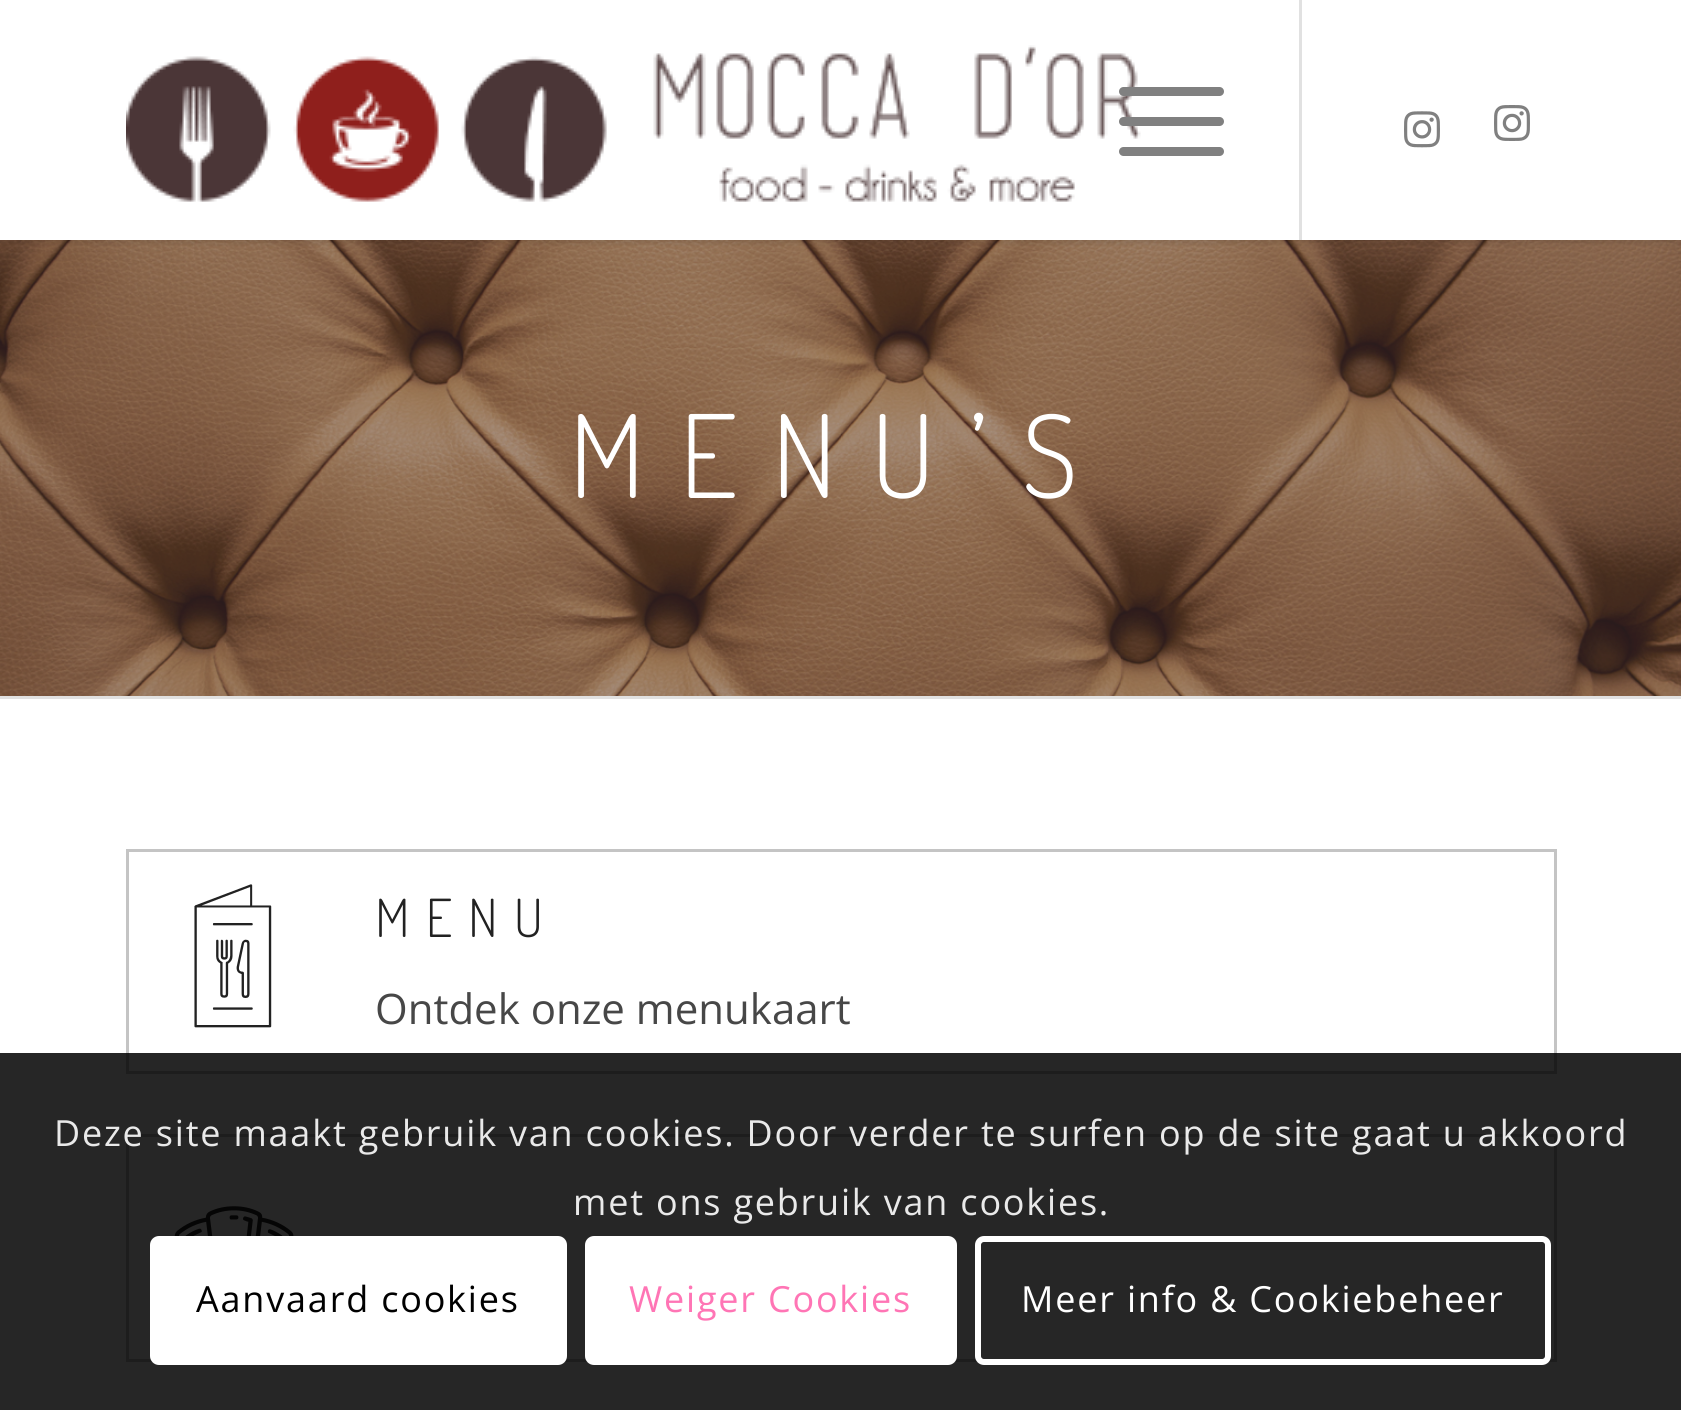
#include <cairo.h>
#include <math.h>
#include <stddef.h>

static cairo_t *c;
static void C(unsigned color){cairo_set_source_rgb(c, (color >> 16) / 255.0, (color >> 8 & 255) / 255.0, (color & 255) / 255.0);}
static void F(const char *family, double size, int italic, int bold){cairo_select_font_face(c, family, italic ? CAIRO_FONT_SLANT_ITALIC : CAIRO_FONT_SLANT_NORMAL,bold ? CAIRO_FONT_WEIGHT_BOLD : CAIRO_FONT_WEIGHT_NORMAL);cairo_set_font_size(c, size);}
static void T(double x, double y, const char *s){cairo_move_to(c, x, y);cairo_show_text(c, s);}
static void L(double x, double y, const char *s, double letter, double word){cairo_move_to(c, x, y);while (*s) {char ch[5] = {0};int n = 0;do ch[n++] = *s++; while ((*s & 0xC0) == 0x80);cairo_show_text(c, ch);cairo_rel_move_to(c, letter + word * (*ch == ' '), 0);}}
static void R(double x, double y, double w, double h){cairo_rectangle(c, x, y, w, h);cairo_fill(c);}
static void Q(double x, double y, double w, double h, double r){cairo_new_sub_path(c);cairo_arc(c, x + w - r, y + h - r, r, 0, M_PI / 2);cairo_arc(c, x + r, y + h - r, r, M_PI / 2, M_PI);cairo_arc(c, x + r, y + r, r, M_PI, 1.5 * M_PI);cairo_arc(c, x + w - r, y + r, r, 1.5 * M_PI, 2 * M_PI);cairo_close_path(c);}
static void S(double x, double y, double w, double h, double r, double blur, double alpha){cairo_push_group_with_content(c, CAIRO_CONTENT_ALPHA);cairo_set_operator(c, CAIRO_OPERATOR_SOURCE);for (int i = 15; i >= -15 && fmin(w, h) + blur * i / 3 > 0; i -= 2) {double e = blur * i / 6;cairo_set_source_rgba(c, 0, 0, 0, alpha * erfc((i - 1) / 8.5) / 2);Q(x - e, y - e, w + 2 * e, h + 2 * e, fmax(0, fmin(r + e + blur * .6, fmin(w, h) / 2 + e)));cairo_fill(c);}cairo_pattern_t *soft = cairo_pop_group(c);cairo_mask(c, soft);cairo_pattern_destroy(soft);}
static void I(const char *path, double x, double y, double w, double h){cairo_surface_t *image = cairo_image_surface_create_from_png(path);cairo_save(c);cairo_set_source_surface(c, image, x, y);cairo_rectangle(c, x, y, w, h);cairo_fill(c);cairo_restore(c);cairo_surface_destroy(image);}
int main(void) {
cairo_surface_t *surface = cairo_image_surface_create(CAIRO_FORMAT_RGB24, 1681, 1410);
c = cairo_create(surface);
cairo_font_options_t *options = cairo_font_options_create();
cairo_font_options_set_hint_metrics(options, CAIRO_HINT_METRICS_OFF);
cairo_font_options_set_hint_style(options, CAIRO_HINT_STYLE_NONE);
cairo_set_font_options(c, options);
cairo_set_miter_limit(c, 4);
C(0xffffff);
cairo_paint(c);
I("4.png",0,240,1681,456);
cairo_save(c);
cairo_rectangle(c,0,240,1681,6);
cairo_clip(c);
C(0x000000);
S(-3,-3,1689,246,0,3,.1);
cairo_restore(c);
I("1.png",126,45,1015,157);
C(0xe1e1e1);
R(1299,0,3,240);
C(0x808080);
Q(1119,117,105,9,4.5);
cairo_fill(c);
Q(1119,87,105,9,4.5);
cairo_fill(c);
Q(1119,147,105,9,4.5);
cairo_fill(c);
I("2.png",1404,111,36,37);
I("3.png",1494,105,36,36);
F("Dosis Light",115,0,0);
C(0xffffff);
L(569,498,"MENU’S",34.5,0);
C(0xe1e1e1);
R(0,696,1681,3);
cairo_rectangle(c,127.5,850.5,1428,222);
C(0xc4c4c4);
cairo_set_line_width(c,3);
cairo_stroke(c);
I("5.png",194,884,78,144);
F("Dosis Light",52.5,0,0);
C(0x222222);
L(375,937,"MENU",16,0);
F("Open Sans",42,0,0);
C(0x474747);
T(375,1024,"Ontdek onze menukaart");
cairo_rectangle(c,127.5,1135.5,1428,225);
C(0xc4c4c4);
cairo_stroke(c);
I("6.png",174,1206,120,30);
cairo_set_source_rgba(c,0,0,0,0.85);
R(0,1053,1681,357);
F("Open Sans",36,0,0);
C(0xe9e9e9);
L(54,1146,"Deze site maakt gebruik van cookies. Door verder te surfen op de site gaat u akkoord",1.8,0);
L(573,1215,"met ons gebruik van cookies.",1.8,0);
C(0xffffff);
Q(150,1236,417,129,9);
cairo_fill(c);
C(0x000000);
L(196,1312,"Aanvaard cookies",1.8,0);
C(0xffffff);
Q(588,1239,366,123,6);
cairo_fill_preserve(c);
cairo_set_line_width(c,6);
cairo_stroke(c);
C(0xff75b5);
L(629,1312,"Weiger Cookies",1.8,0);
Q(978,1239,570,123,6);
C(0xffffff);
cairo_stroke(c);
L(1021,1312,"Meer info & Cookiebeheer",1.8,0);
cairo_surface_write_to_png(surface, "o.png");
cairo_font_options_destroy(options);
cairo_destroy(c);
cairo_surface_destroy(surface);
return 0;
}
